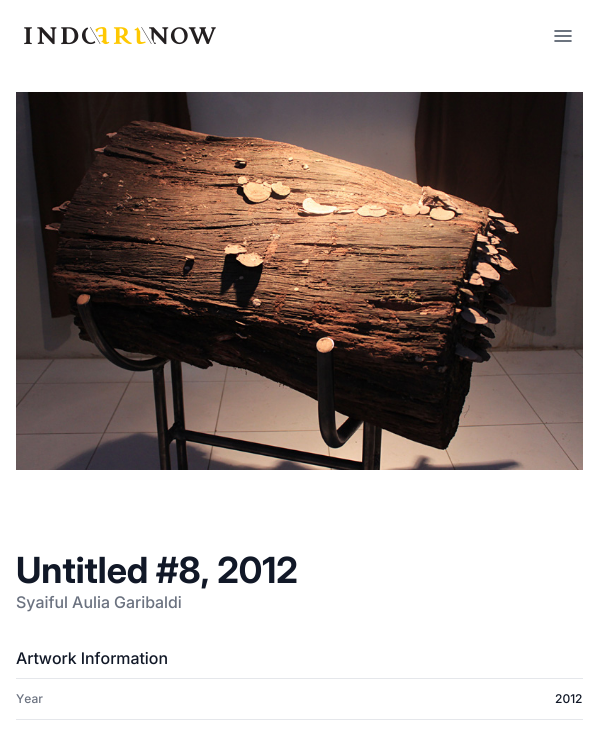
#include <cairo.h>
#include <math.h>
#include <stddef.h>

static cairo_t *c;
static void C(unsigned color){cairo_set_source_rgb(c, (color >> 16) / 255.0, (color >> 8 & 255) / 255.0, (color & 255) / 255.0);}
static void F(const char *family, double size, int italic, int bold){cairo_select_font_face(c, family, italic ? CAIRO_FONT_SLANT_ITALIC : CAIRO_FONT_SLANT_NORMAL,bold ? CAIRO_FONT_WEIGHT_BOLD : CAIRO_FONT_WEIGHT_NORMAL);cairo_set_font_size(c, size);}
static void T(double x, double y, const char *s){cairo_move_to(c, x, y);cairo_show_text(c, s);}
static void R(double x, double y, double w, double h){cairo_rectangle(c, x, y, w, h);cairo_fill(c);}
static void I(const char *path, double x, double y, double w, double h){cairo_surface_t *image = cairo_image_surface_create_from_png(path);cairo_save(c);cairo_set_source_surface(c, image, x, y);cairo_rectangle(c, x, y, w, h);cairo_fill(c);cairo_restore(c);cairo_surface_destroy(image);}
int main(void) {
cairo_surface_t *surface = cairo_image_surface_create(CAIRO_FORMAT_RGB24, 599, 731);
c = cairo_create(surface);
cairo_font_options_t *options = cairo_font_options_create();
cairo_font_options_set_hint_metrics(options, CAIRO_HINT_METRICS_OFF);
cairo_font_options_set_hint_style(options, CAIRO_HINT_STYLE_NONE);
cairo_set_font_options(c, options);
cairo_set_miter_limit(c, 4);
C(0xffffff);
cairo_paint(c);
I("1.png",24,27,192,18);
cairo_new_path(c);
cairo_move_to(c,555,31);
cairo_line_to(c,571,31);
cairo_move_to(c,555,36);
cairo_line_to(c,571,36);
cairo_move_to(c,555,41);
cairo_line_to(c,571,41);
C(0x374151);
cairo_set_line_width(c,1.5);
cairo_set_line_cap(c,CAIRO_LINE_CAP_ROUND);
cairo_set_line_join(c,CAIRO_LINE_JOIN_ROUND);
cairo_stroke(c);
I("2.png",16,92,567,378);
F("Inter",36,0,1);
C(0x111827);
T(16,583,"Untitled #8, 2012");
F("Inter Medium",16,0,0);
C(0x6b7280);
T(16,608,"Syaiful Aulia Garibaldi");
C(0x111827);
T(16,664,"Artwork Information");
C(0xe5e7eb);
R(16,678,567,1);
F("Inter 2 Medium",12,0,0);
C(0x6b7280);
T(16,703,"Year");
C(0x111827);
T(555,703,"2012");
C(0xe5e7eb);
R(16,719,567,1);
cairo_surface_write_to_png(surface, "o.png");
cairo_font_options_destroy(options);
cairo_destroy(c);
cairo_surface_destroy(surface);
return 0;
}
